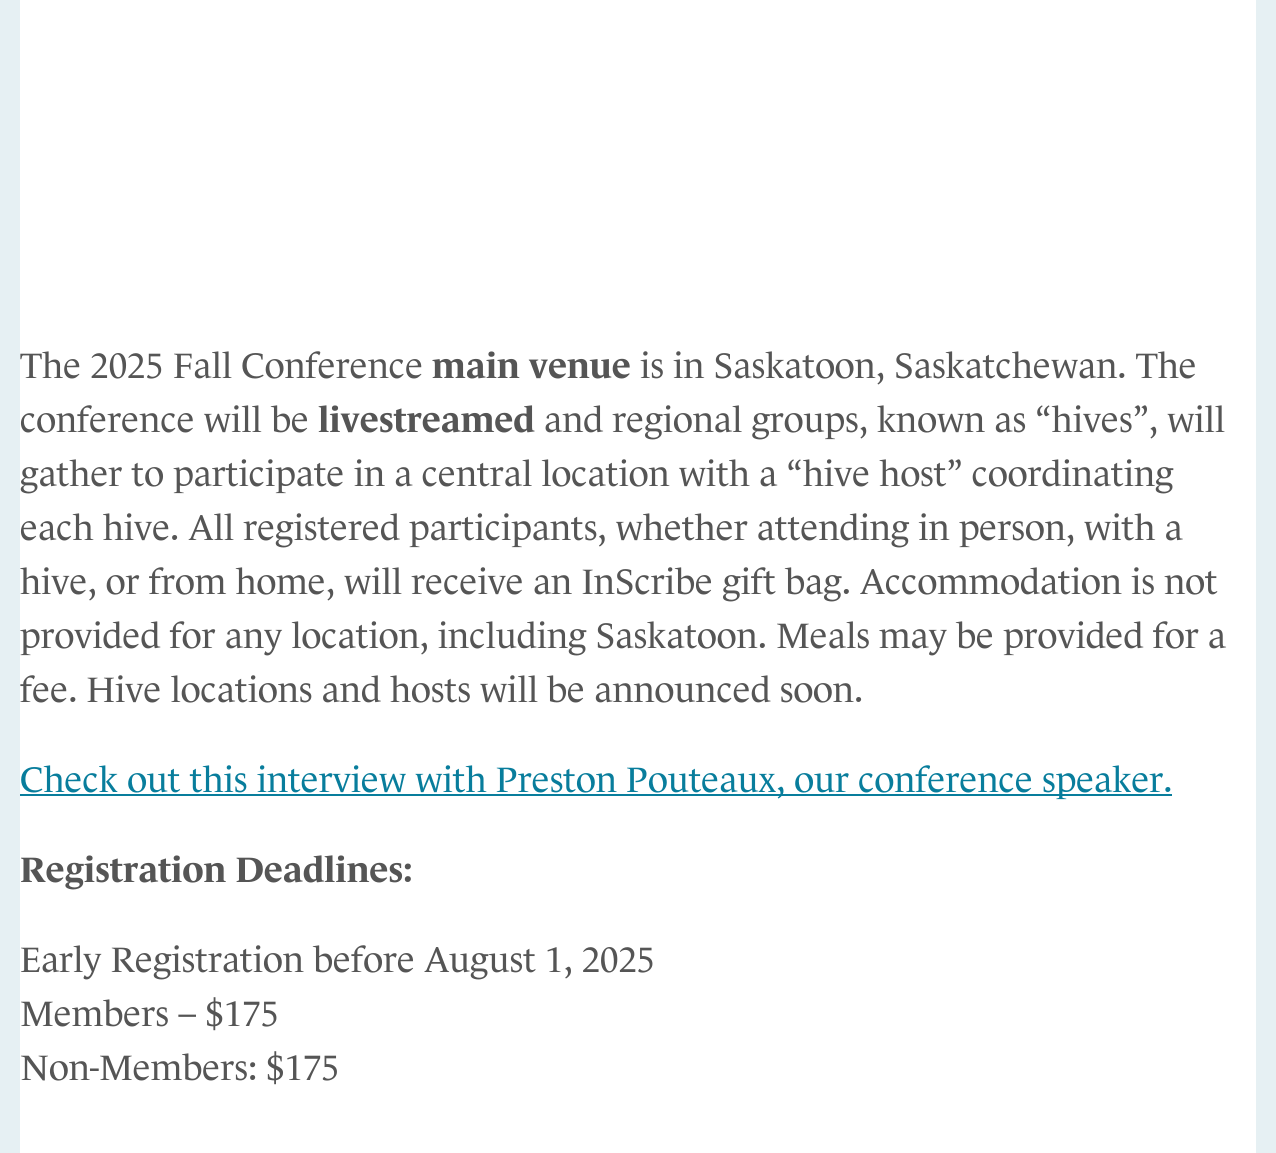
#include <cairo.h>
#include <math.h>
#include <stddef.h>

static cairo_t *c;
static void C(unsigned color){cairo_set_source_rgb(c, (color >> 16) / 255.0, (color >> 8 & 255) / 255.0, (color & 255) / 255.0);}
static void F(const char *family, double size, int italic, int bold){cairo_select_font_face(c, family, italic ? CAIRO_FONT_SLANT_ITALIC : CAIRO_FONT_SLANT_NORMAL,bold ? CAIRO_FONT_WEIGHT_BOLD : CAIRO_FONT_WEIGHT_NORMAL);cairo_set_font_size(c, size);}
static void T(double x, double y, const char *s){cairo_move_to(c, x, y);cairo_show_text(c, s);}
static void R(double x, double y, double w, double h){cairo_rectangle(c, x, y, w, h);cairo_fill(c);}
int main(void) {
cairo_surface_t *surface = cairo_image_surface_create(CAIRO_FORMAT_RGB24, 1276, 1153);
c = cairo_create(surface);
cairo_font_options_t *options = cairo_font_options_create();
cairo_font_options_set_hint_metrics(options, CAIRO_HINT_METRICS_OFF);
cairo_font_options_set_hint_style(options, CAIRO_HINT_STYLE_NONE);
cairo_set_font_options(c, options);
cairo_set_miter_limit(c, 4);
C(0xe6f0f3);
cairo_paint(c);
C(0xffffff);
R(20,0,1236,1153);
F("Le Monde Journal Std",36,0,0);
C(0x555555);
T(20,378,"The 2025 Fall Conference");
F("Le Monde Journal Std",36,0,1);
T(432,378,"main venue");
F("Le Monde Journal Std",36,0,0);
T(640,378,"is in Saskatoon, Saskatchewan. The");
T(20,432,"conference will be");
F("Le Monde Journal Std",36,0,1);
T(318,432,"livestreamed");
F("Le Monde Journal Std",36,0,0);
T(544,432,"and regional groups, known as “hives”, will");
T(20,486,"gather to participate in a central location with a “hive host” coordinating");
T(20,540,"each hive. All registered participants, whether attending in person, with a");
T(20,594,"hive, or from home, will receive an InScribe gift bag. Accommodation is not");
T(20,648,"provided for any location, including Saskatoon. Meals may be provided for a");
T(20,702,"fee. Hive locations and hosts will be announced soon.");
C(0x087d9c);
R(20,794,1152,2);
T(20,792,"Check out this interview with Preston Pouteaux, our conference speaker.");
F("Le Monde Journal Std",36,0,1);
C(0x555555);
T(20,882,"Registration Deadlines:");
F("Le Monde Journal Std",36,0,0);
T(20,972,"Early Registration before August 1, 2025");
T(20,1026,"Members – $175");
T(20,1080,"Non-Members: $175");
cairo_surface_write_to_png(surface, "o.png");
cairo_font_options_destroy(options);
cairo_destroy(c);
cairo_surface_destroy(surface);
return 0;
}
